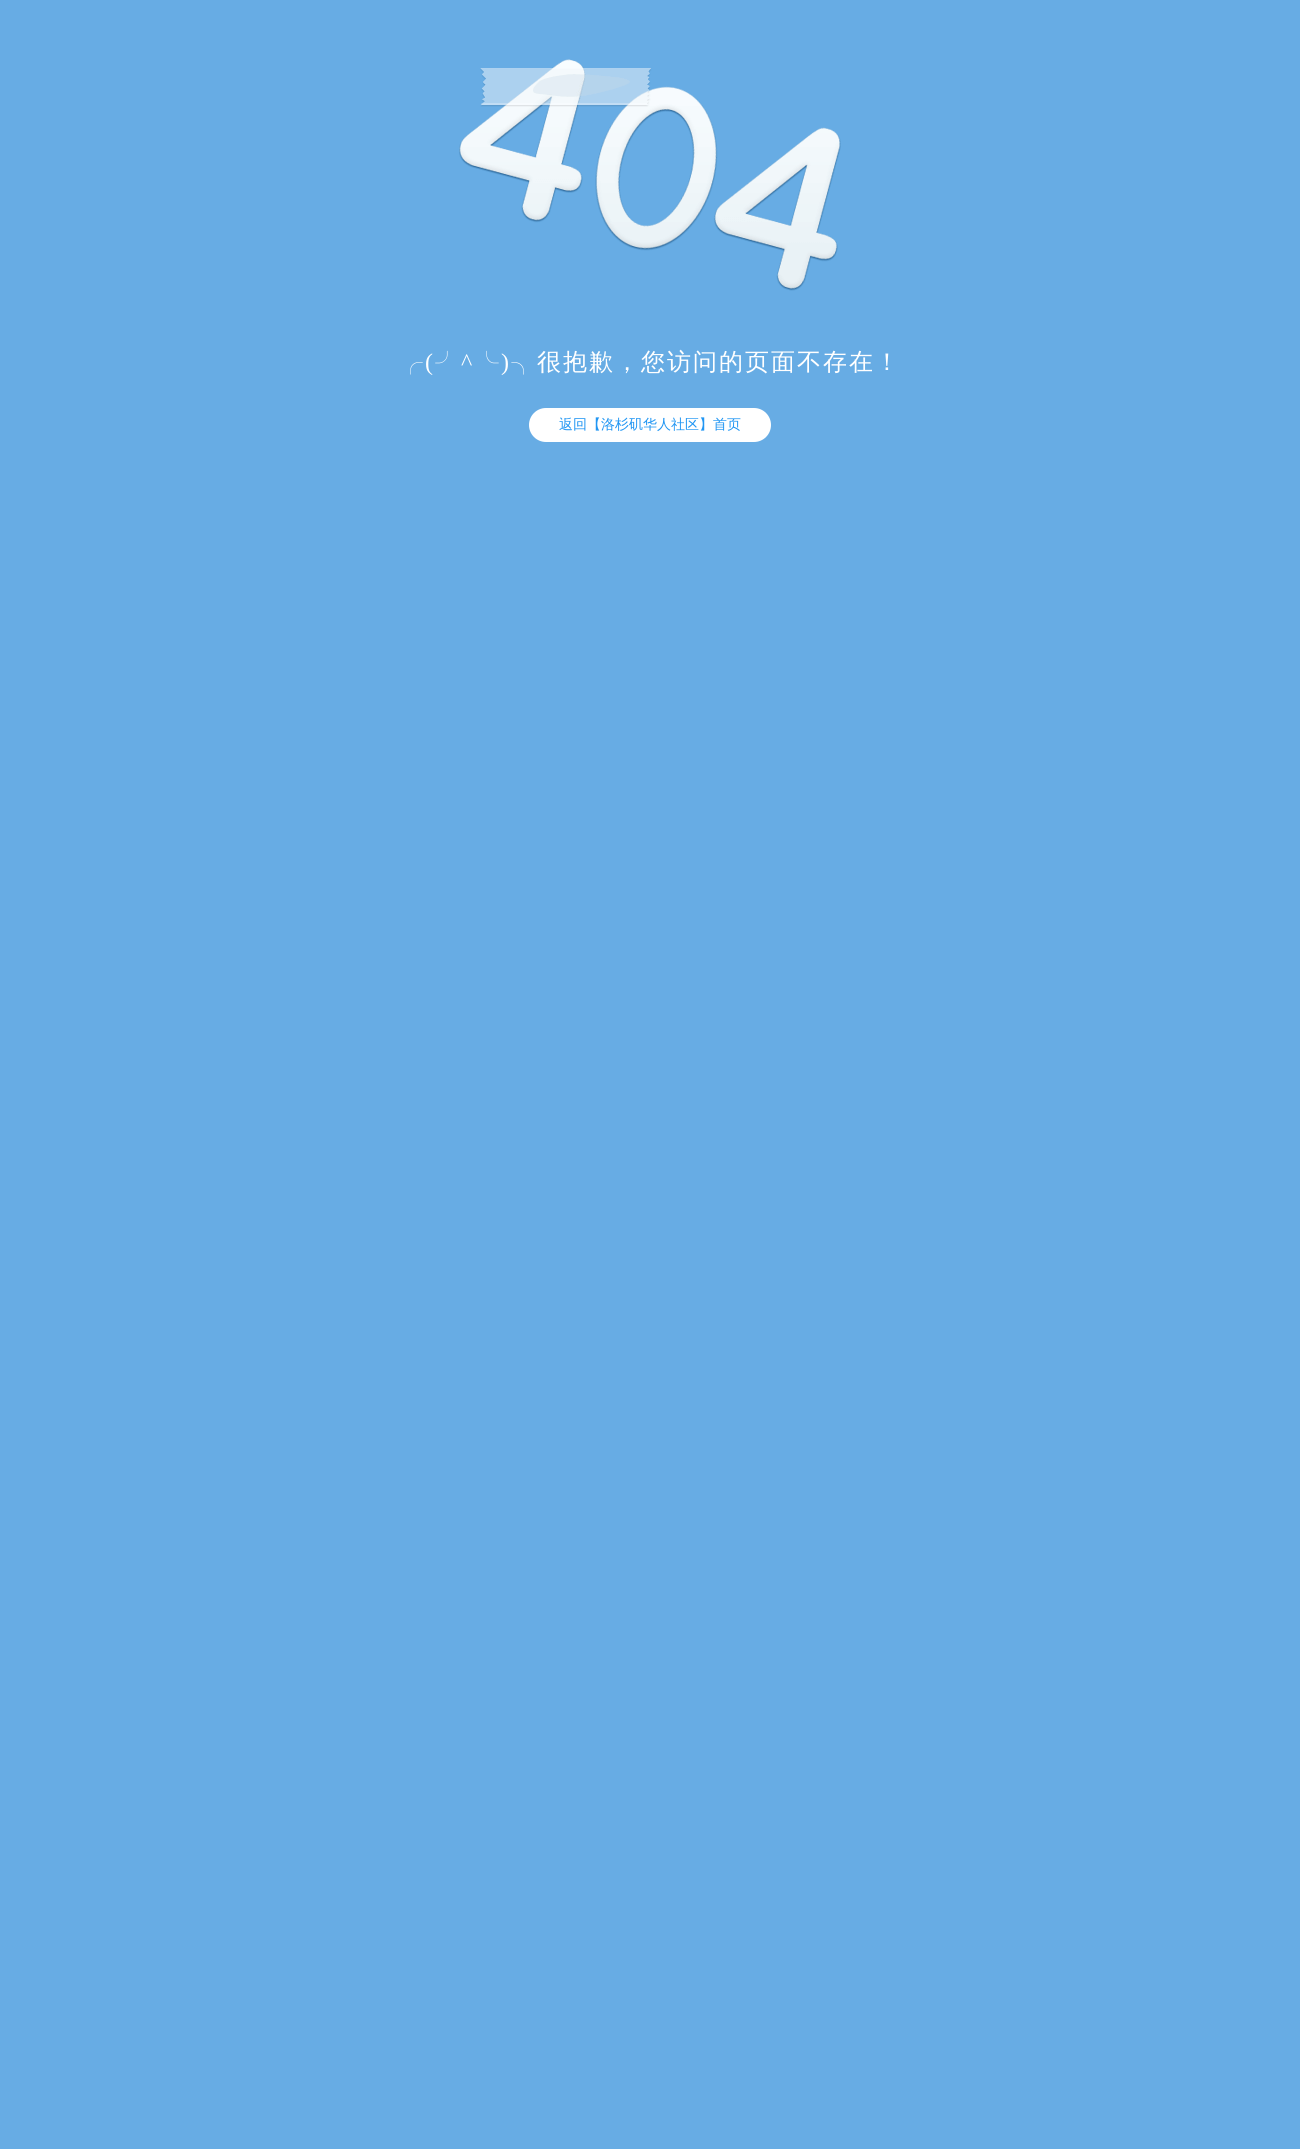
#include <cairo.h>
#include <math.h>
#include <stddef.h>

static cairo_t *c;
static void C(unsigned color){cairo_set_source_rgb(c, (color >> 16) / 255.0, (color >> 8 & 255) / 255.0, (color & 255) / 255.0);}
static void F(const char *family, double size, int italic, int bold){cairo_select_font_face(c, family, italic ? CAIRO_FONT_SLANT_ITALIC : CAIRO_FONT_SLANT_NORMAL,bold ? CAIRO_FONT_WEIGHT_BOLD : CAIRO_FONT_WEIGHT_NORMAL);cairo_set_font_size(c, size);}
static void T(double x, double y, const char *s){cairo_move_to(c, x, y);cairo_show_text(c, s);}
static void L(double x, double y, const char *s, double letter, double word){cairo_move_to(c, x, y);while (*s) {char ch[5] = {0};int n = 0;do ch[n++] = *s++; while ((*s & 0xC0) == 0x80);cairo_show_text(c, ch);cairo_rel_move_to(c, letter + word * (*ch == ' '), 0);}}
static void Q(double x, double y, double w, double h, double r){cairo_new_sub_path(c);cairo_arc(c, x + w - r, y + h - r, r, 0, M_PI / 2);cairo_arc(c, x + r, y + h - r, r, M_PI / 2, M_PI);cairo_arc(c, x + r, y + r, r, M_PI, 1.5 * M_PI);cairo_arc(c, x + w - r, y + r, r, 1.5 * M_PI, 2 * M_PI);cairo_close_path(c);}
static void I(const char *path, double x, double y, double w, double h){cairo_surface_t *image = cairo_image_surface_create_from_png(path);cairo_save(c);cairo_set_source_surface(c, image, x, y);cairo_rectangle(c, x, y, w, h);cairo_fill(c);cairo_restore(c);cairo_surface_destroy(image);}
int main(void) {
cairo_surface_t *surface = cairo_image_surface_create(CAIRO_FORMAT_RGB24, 1300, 2149);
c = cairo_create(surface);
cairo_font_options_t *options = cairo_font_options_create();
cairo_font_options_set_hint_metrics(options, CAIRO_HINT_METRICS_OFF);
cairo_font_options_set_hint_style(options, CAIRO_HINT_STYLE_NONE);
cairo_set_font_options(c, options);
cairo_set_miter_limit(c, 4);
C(0x67ace4);
cairo_paint(c);
I("1.png",459,59,382,232);
F("Liberation Serif",24,0,0);
C(0xffffff);
L(425,370,"(",2,0);
F("WenQuanYi Zen Hei Medium",24,0,0);
L(435,370,"╯",2,0);
F("Liberation Serif",24,0,0);
L(461,370,"^",2,0);
F("WenQuanYi Zen Hei Medium",24,0,0);
L(475,370,"╰",2,0);
F("Liberation Serif",24,0,0);
L(501,370,")",2,0);
F("WenQuanYi Zen Hei Medium",24,0,0);
L(511,370,"╮很抱歉，您访问的页面不存在！",2,0);
L(399,370,"╭",2,0);
Q(529,408,242,34,17);
cairo_fill(c);
F("WenQuanYi Zen Hei Medium",14,0,0);
C(0x2196f3);
T(559,429,"返回【洛杉矶华人社区】首页");
cairo_surface_write_to_png(surface, "o.png");
cairo_font_options_destroy(options);
cairo_destroy(c);
cairo_surface_destroy(surface);
return 0;
}
